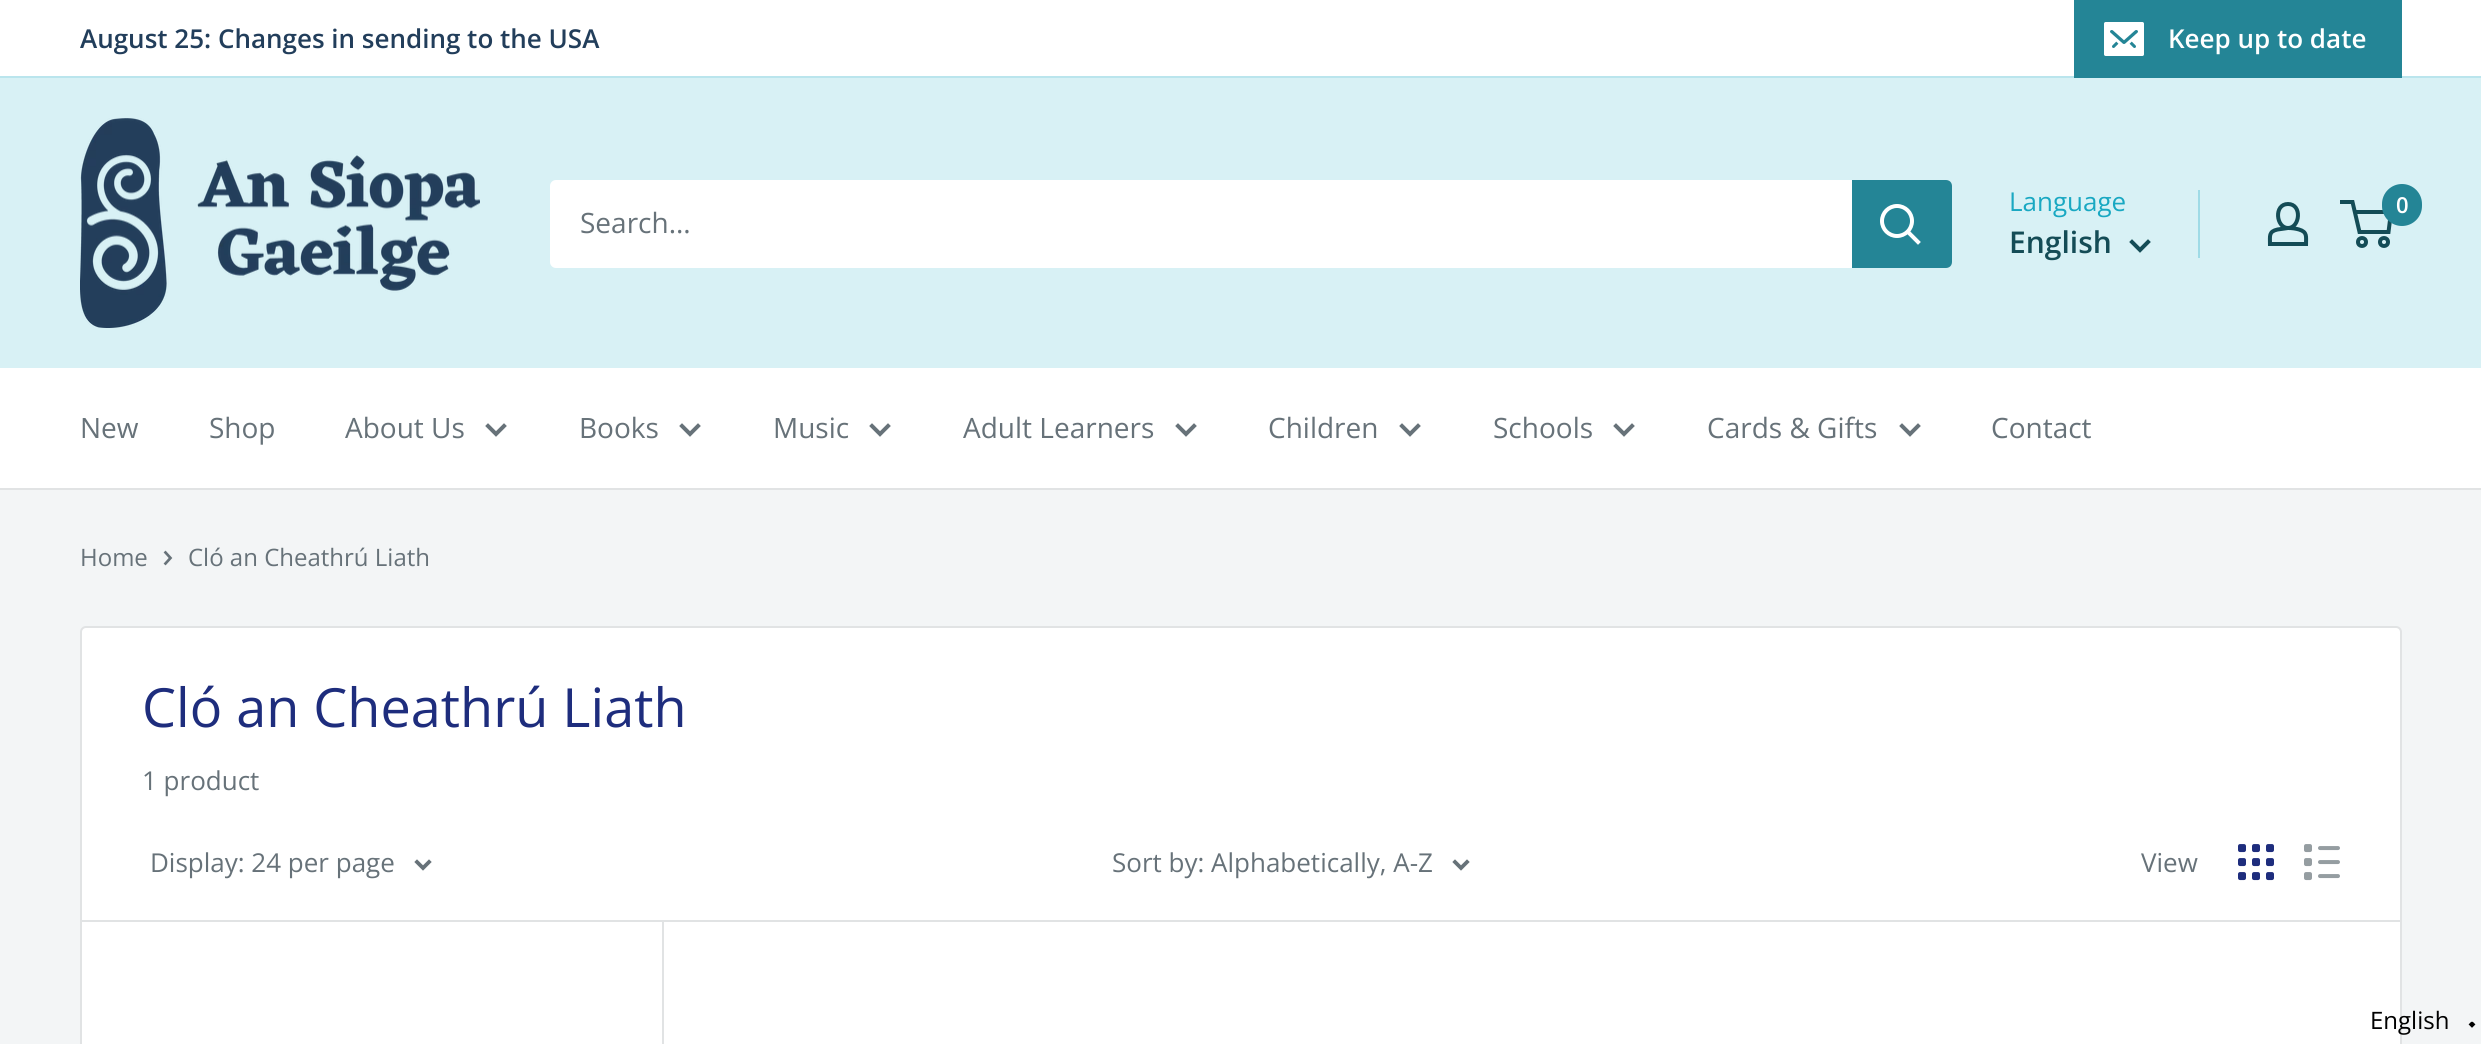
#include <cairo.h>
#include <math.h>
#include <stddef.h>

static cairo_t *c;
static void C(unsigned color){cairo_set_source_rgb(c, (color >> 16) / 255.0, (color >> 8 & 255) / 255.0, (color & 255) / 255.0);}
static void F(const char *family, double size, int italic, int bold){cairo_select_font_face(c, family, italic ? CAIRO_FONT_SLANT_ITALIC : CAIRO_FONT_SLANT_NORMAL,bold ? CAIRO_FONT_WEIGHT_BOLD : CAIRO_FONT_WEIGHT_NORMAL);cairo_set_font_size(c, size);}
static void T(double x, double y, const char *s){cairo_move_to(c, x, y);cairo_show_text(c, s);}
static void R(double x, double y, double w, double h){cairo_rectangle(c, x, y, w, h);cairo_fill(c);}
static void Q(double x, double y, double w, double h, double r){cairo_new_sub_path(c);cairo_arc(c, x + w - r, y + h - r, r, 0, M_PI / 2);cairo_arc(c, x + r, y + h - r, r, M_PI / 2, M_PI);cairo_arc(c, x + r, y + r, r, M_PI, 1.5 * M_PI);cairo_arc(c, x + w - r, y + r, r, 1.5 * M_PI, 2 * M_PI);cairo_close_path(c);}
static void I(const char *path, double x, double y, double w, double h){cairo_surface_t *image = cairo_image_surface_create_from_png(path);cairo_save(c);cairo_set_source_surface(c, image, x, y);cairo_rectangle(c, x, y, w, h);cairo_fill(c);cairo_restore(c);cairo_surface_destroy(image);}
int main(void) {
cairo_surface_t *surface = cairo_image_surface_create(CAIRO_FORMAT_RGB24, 2481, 1044);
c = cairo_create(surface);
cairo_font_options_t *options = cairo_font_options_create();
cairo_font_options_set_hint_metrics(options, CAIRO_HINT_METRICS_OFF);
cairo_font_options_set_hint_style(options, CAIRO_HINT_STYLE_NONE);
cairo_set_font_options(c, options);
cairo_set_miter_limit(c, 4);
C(0xf3f5f6);
cairo_paint(c);
C(0xffffff);
R(0,0,2481,76);
C(0xbae5ed);
R(0,76,2481,2);
F("Open Sans SemiBold",26,0,0);
C(0x223e5b);
T(80,48,"August 25: Changes in sending to the USA");
C(0x248596);
R(2074,0,328,78);
I("1.png",2104,22,40,34);
C(0xffffff);
T(2168,48,"Keep up to date");
C(0xd8f1f5);
R(0,78,2481,290);
I("2.png",80,118,400,210);
C(0xffffff);
Q(550,180,1402,88,6);
cairo_fill(c);
F("Open Sans",28,0,0);
C(0x677279);
T(580,233,"Search...");
C(0x248596);
cairo_new_path(c);
cairo_move_to(c,1852,180);
cairo_line_to(c,1946,180);
cairo_curve_to(c,1949.5,180,1952,182.5,1952,186);
cairo_line_to(c,1952,262);
cairo_curve_to(c,1952,265.5,1949.5,268,1946,268);
cairo_line_to(c,1852,268);
cairo_close_path(c);
cairo_fill(c);
cairo_new_path(c);
cairo_move_to(c,1918,242);
cairo_line_to(c,1908,232);
C(0xffffff);
cairo_set_line_width(c,4);
cairo_set_line_cap(c,CAIRO_LINE_CAP_SQUARE);
cairo_stroke(c);
cairo_arc(c,1897,221,15,0,2 * M_PI);
cairo_set_line_cap(c,CAIRO_LINE_CAP_BUTT);
cairo_stroke(c);
F("Open Sans",26,0,0);
C(0x19a8c2);
T(2009,211,"Language");
F("Open Sans SemiBold",30,0,0);
C(0x144c56);
T(2009,253,"English");
cairo_new_path(c);
cairo_move_to(c,2148,242);
cairo_line_to(c,2140,250);
cairo_line_to(c,2132,242);
cairo_set_line_cap(c,CAIRO_LINE_CAP_SQUARE);
cairo_stroke(c);
C(0x9fdbe6);
R(2198,190,2,68);
cairo_new_path(c);
cairo_move_to(c,2288,228);
cairo_curve_to(c,2292,228,2295.5,228.5,2299,229.5);
cairo_curve_to(c,2307.5,232,2306,236.5,2306,244);
cairo_line_to(c,2270,244);
cairo_curve_to(c,2270,236,2268.5,231.5,2277.5,229.5);
cairo_close_path(c);
cairo_move_to(c,2288,228);
cairo_curve_to(c,2276,228,2273.5,204,2288,204);
cairo_curve_to(c,2302.5,204,2300,228,2288,228);
cairo_close_path(c);
C(0x144c56);
cairo_set_line_cap(c,CAIRO_LINE_CAP_BUTT);
cairo_stroke(c);
cairo_arc(c,2362,242,4,0,2 * M_PI);
cairo_stroke(c);
cairo_arc(c,2384,242,4,0,2 * M_PI);
cairo_stroke(c);
cairo_new_path(c);
cairo_move_to(c,2354.5,212);
cairo_line_to(c,2391,212);
cairo_line_to(c,2388.5,232);
cairo_line_to(c,2359.5,232);
cairo_line_to(c,2352.5,202);
cairo_line_to(c,2340,202);
cairo_stroke(c);
C(0x248596);
Q(2382,184,40,42,20);
cairo_fill(c);
F("Open Sans SemiBold",22,0,0);
C(0xffffff);
T(2396,213,"0");
R(0,368,2481,120);
C(0xe1e3e4);
R(0,488,2481,2);
F("Open Sans",28,0,0);
C(0x677279);
T(80,438,"New");
T(209,438,"Shop");
T(345,438,"About Us");
cairo_new_path(c);
cairo_move_to(c,504,426);
cairo_line_to(c,496,434);
cairo_line_to(c,488,426);
cairo_set_line_cap(c,CAIRO_LINE_CAP_SQUARE);
cairo_stroke(c);
T(579,438,"Books");
cairo_new_path(c);
cairo_move_to(c,698,426);
cairo_line_to(c,690,434);
cairo_line_to(c,682,426);
cairo_stroke(c);
T(773,438,"Music");
cairo_new_path(c);
cairo_move_to(c,888,426);
cairo_line_to(c,880,434);
cairo_line_to(c,872,426);
cairo_stroke(c);
T(963,438,"Adult Learners");
cairo_new_path(c);
cairo_move_to(c,1194,426);
cairo_line_to(c,1186,434);
cairo_line_to(c,1178,426);
cairo_stroke(c);
T(1268,438,"Children");
cairo_new_path(c);
cairo_move_to(c,1418,426);
cairo_line_to(c,1410,434);
cairo_line_to(c,1402,426);
cairo_stroke(c);
T(1493,438,"Schools");
cairo_new_path(c);
cairo_move_to(c,1632,426);
cairo_line_to(c,1624,434);
cairo_line_to(c,1616,426);
cairo_stroke(c);
T(1707,438,"Cards & Gifts");
cairo_new_path(c);
cairo_move_to(c,1918,426);
cairo_line_to(c,1910,434);
cairo_line_to(c,1902,426);
cairo_stroke(c);
T(1991,438,"Contact");
F("Open Sans",24,0,0);
T(80,566,"Home");
cairo_new_path(c);
cairo_move_to(c,165.5,552.5);
cairo_line_to(c,170.5,558);
cairo_line_to(c,165.5,563.5);
cairo_set_line_width(c,2.7);
cairo_stroke(c);
T(188,566,"Cló an Cheathrú Liath");
C(0xffffff);
Q(81,627,2320,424,5);
cairo_fill_preserve(c);
C(0xe1e3e4);
cairo_set_line_width(c,2);
cairo_set_line_cap(c,CAIRO_LINE_CAP_BUTT);
cairo_stroke(c);
F("Open Sans",54,0,0);
C(0x1e2d7d);
T(142,727,"Cló an Cheathrú Liath");
F("Open Sans",26,0,0);
C(0x677279);
T(142,790,"1 product");
C(0xe1e3e4);
R(662,920,2,124);
R(82,920,2318,2);
C(0x677279);
T(150,872,"Display: 24 per page");
cairo_new_path(c);
cairo_move_to(c,429,862);
cairo_line_to(c,423,868);
cairo_line_to(c,417,862);
cairo_set_line_width(c,3.8);
cairo_set_line_cap(c,CAIRO_LINE_CAP_SQUARE);
cairo_stroke(c);
T(1112,872,"Sort by: Alphabetically, A-Z");
cairo_new_path(c);
cairo_move_to(c,1467,862);
cairo_line_to(c,1461,868);
cairo_line_to(c,1455,862);
cairo_stroke(c);
T(2141,872,"View");
I("3.png",2238,844,36,37);
I("4.png",2304,844,36,37);
F("Open Sans",24,0,0);
C(0x000000);
T(2370,1029,"English");
cairo_new_path(c);
cairo_move_to(c,2470,1023);
cairo_line_to(c,2472,1025);
cairo_line_to(c,2474,1023);
cairo_set_line_width(c,4);
cairo_set_line_cap(c,CAIRO_LINE_CAP_BUTT);
cairo_stroke(c);
cairo_surface_write_to_png(surface, "o.png");
cairo_font_options_destroy(options);
cairo_destroy(c);
cairo_surface_destroy(surface);
return 0;
}
